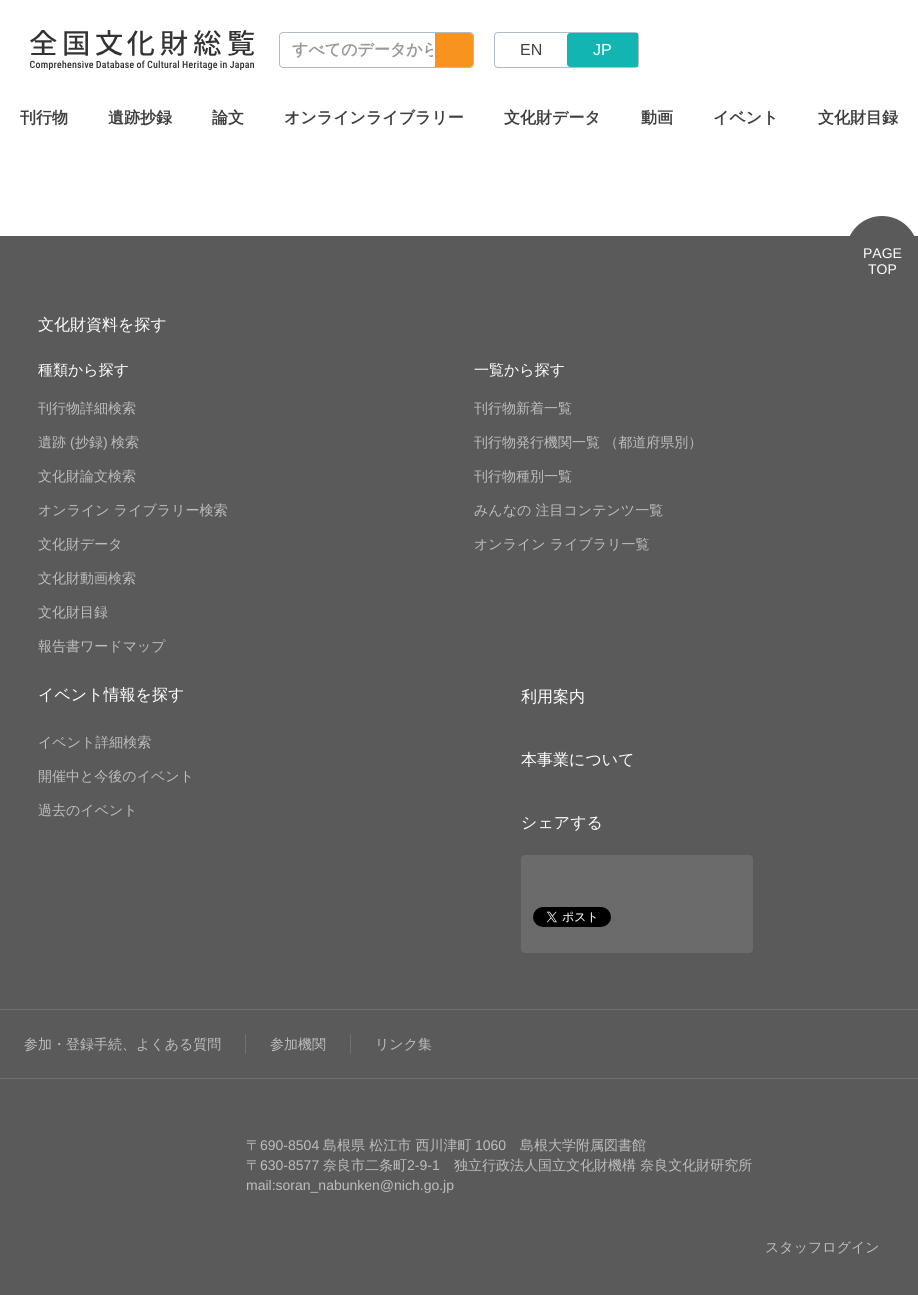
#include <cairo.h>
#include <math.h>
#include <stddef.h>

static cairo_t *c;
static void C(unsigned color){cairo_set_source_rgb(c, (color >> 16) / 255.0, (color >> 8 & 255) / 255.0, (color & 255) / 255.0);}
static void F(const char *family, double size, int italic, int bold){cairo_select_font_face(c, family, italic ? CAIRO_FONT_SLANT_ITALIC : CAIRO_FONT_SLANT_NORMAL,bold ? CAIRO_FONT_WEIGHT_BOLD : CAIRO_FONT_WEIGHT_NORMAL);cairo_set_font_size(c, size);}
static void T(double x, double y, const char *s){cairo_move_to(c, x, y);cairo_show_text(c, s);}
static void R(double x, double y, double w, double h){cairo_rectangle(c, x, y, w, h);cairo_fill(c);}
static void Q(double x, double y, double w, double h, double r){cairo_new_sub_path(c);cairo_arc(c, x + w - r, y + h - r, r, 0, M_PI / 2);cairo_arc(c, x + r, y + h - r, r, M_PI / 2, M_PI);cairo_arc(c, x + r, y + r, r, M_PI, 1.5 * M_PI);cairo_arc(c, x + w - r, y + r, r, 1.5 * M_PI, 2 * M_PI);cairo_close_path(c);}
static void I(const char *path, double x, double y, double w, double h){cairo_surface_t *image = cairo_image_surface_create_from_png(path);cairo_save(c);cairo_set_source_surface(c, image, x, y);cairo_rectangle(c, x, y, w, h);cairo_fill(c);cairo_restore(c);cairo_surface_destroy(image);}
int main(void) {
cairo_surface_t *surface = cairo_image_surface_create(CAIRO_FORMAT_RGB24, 918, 1295);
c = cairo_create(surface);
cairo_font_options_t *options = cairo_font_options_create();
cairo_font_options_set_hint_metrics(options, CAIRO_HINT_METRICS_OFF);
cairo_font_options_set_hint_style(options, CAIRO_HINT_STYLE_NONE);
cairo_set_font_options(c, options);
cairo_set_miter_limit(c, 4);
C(0xffffff);
cairo_paint(c);
I("1.png",30,30,224,40);
Q(279.5,32.5,194,35,3.5);
C(0xb2bcc7);
cairo_set_line_width(c,1);
cairo_stroke(c);
cairo_save(c);
cairo_rectangle(c,292,40,141,21);
cairo_clip(c);
F("WenQuanYi Zen Hei",16,0,1);
C(0x999999);
T(292,55,"すべてのデータから");
cairo_restore(c);
C(0xf7931e);
cairo_new_path(c);
cairo_move_to(c,435,33);
cairo_line_to(c,470,33);
cairo_curve_to(c,471.5,33,473,34.5,473,36);
cairo_line_to(c,473,64);
cairo_curve_to(c,473,65.5,471.5,67,470,67);
cairo_line_to(c,435,67);
cairo_close_path(c);
cairo_fill(c);
Q(494.5,32.5,144,35,3.5);
C(0xb2bcc7);
cairo_stroke(c);
F("Liberation Sans",16,0,0);
C(0x3f3f3f);
T(520,55,"EN");
C(0x12b5b1);
cairo_new_path(c);
cairo_move_to(c,570,33);
cairo_line_to(c,638,33);
cairo_line_to(c,638,67);
cairo_line_to(c,570,67);
cairo_curve_to(c,568.5,67,567,65.5,567,64);
cairo_line_to(c,567,36);
cairo_curve_to(c,567,34.5,568.5,33,570,33);
cairo_close_path(c);
cairo_fill(c);
C(0xffffff);
T(593,55,"JP");
F("WenQuanYi Zen Hei",16,0,1);
C(0x3f3f3f);
T(20,123,"刊行物");
T(108,123,"遺跡抄録");
T(212,123,"論文");
T(284,123,"オンラインライブラリー");
T(504,123,"文化財データ");
T(641,123,"動画");
T(713,123,"イベント");
T(818,123,"文化財目録");
C(0x5a5a5a);
R(0,236,918,1059);
cairo_new_path(c);
cairo_arc(c,882,252,36,0,2 * M_PI);
cairo_fill(c);
F("Liberation Sans",14,0,0);
C(0xffffff);
T(863,258,"PAGE");
T(868,274,"TOP");
F("WenQuanYi Zen Hei Medium",16,0,0);
T(38,330,"文化財資料を探す");
F("WenQuanYi Zen Hei Medium",15,0,0);
T(38,375,"種類から探す");
F("WenQuanYi Zen Hei Medium",14,0,0);
C(0xbdbdbd);
T(38,413,"刊行物詳細検索");
T(38,447,"遺跡");
F("Liberation Sans",14,0,0);
T(70,447,"(");
F("WenQuanYi Zen Hei Medium",14,0,0);
T(75,447,"抄録");
F("Liberation Sans",14,0,0);
T(103,447,")");
F("WenQuanYi Zen Hei Medium",14,0,0);
T(111,447,"検索");
T(38,481,"文化財論文検索");
T(38,515,"オンライン ライブラリー検索");
T(38,549,"文化財データ");
T(38,583,"文化財動画検索");
T(38,617,"文化財目録");
T(38,651,"報告書ワードマップ");
F("WenQuanYi Zen Hei Medium",15,0,0);
C(0xffffff);
T(474,375,"一覧から探す");
F("WenQuanYi Zen Hei Medium",14,0,0);
C(0xbdbdbd);
T(474,413,"刊行物新着一覧");
T(474,447,"刊行物発行機関一覧 （都道府県別）");
T(474,481,"刊行物種別一覧");
T(474,515,"みんなの 注目コンテンツ一覧");
T(474,549,"オンライン ライブラリ一覧");
F("WenQuanYi Zen Hei Medium",16,0,0);
C(0xffffff);
T(38,700,"イベント情報を探す");
F("WenQuanYi Zen Hei Medium",14,0,0);
C(0xbdbdbd);
T(38,747,"イベント詳細検索");
T(38,781,"開催中と今後のイベント");
T(38,815,"過去のイベント");
F("WenQuanYi Zen Hei Medium",16,0,0);
C(0xffffff);
T(521,702,"利用案内");
T(521,765,"本事業について");
T(521,828,"シェアする");
C(0x6b6b6b);
Q(521,855,232,98,4);
cairo_fill(c);
I("2.png",533,907,78,20);
C(0x707070);
R(0,1009,918,1);
R(0,1078,918,1);
R(245,1034,1,20);
F("WenQuanYi Zen Hei Medium",14,0,0);
C(0xbdbdbd);
T(24,1049,"参加・登録手続、よくある質問");
C(0x707070);
R(350,1034,1,20);
C(0xbdbdbd);
T(270,1049,"参加機関");
T(375,1049,"リンク集");
T(246,1150,"〒");
F("Liberation Sans",14,0,0);
T(260,1150,"690-8504");
F("WenQuanYi Zen Hei Medium",14,0,0);
T(323,1150,"島根県 松江市 西川津町");
F("Liberation Sans",14,0,0);
T(475,1150,"1060");
F("WenQuanYi Zen Hei Medium",14,0,0);
T(520,1150,"島根大学附属図書館");
T(246,1170,"〒");
F("Liberation Sans",14,0,0);
T(260,1170,"630-8577");
F("WenQuanYi Zen Hei Medium",14,0,0);
T(323,1170,"奈良市二条町");
F("Liberation Sans",14,0,0);
T(407,1170,"2-9-1");
F("WenQuanYi Zen Hei Medium",14,0,0);
T(454,1170,"独立行政法人国立文化財機構 奈良文化財研究所");
F("Liberation Sans",14,0,0);
T(246,1190,"mail:soran_nabunken@nich.go.jp");
F("WenQuanYi Zen Hei Medium",14,0,0);
T(765,1252,"スタッフログイン");
cairo_surface_write_to_png(surface, "o.png");
cairo_font_options_destroy(options);
cairo_destroy(c);
cairo_surface_destroy(surface);
return 0;
}
